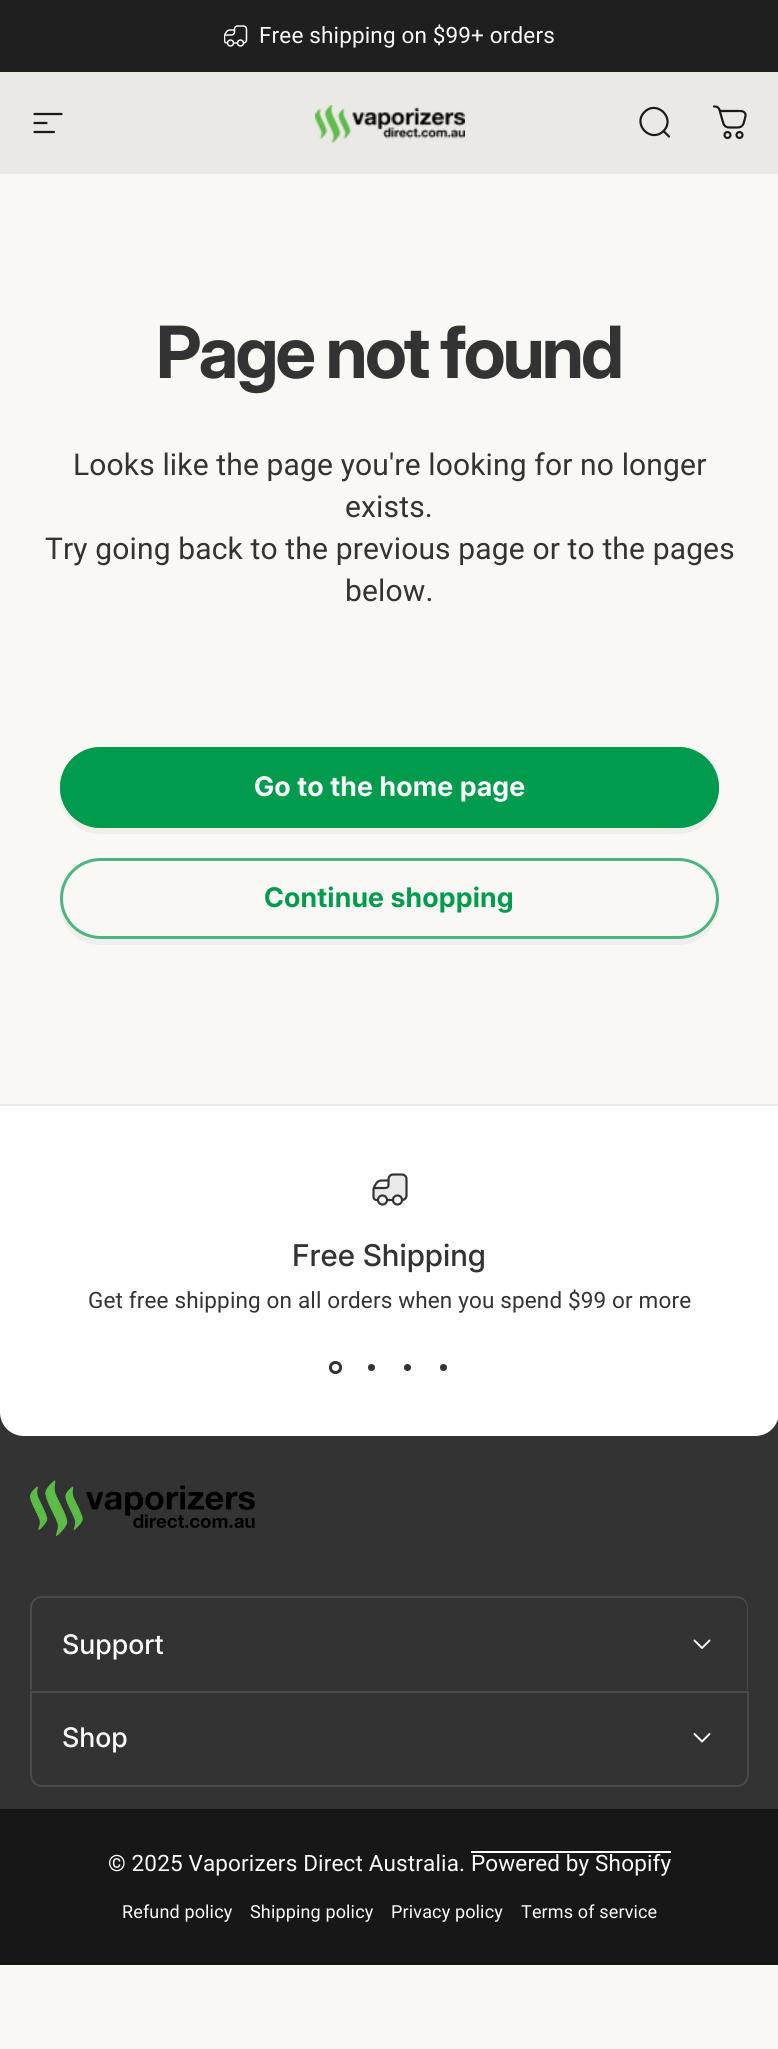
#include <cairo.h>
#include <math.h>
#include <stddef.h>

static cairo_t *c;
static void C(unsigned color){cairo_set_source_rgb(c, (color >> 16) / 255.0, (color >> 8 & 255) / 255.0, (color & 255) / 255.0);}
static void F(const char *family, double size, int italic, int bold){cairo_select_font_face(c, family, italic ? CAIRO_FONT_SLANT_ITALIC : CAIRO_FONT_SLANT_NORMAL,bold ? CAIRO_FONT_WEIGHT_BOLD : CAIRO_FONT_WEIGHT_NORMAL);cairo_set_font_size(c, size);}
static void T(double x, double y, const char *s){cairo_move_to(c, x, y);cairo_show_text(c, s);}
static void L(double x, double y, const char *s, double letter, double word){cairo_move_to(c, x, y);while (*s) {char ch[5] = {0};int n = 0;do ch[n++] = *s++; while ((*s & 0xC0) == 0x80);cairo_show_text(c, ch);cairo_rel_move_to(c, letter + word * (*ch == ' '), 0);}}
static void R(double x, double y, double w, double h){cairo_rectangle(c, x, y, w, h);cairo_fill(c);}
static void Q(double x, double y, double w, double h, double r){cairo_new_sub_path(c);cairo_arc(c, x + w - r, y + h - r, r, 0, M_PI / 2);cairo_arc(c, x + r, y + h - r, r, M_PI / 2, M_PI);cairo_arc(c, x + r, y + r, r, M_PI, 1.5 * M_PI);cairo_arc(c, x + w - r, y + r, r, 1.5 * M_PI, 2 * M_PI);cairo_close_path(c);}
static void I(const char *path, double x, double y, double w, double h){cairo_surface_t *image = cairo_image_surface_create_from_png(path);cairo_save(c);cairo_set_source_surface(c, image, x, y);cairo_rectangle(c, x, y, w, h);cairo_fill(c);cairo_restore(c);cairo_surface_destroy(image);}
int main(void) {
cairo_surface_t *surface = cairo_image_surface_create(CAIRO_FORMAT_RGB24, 778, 2049);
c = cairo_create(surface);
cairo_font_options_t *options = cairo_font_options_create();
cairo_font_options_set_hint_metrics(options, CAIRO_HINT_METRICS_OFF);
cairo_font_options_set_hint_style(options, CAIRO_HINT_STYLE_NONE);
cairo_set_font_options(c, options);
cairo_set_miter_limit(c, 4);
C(0xfaf8f5);
cairo_paint(c);
C(0x1f1f1f);
R(0,0,778,72);
I("1.png",224,25,24,22);
F("Roboto",22.5,0,0);
C(0xfafafa);
L(259,43,"Free shipping on $99+ orders",.15,0);
C(0xebe9e5);
R(0,72,778,102);
cairo_new_path(c);
cairo_move_to(c,34.5,114);
cairo_line_to(c,61.5,114);
cairo_move_to(c,34.5,123);
cairo_line_to(c,46.5,123);
cairo_move_to(c,34.5,132);
cairo_line_to(c,54,132);
C(0x1a1a1a);
cairo_set_line_width(c,2.2);
cairo_set_line_cap(c,CAIRO_LINE_CAP_ROUND);
cairo_stroke(c);
I("2.png",315,105,150,38);
cairo_new_path(c);
cairo_move_to(c,669,136.5);
cairo_line_to(c,663.5,131);
cairo_move_to(c,663.5,131);
cairo_curve_to(c,676,118.5,657,99.5,644.5,112);
cairo_curve_to(c,632,124.5,651,143.5,663.5,131);
cairo_close_path(c);
cairo_stroke(c);
I("3.png",713,105,34,35);
F("Inter",72,0,1);
C(0x333333);
L(156,378,"Page not found",-2.9,0);
F("Roboto",30,0,0);
L(73,475,"Looks like the page you're looking for no longer",.15,0);
L(345,517,"exists.",.15,0);
L(45,559,"Try going back to the previous page or to the pages",.15,0);
L(345,601,"below.",.15,0);
C(0xefeeeb);
cairo_new_path(c);
cairo_move_to(c,60,790);
cairo_line_to(c,60,794);
cairo_curve_to(c,60,816,78,834,100,834);
cairo_line_to(c,678,834);
cairo_curve_to(c,701,834,719,816,719,794);
cairo_line_to(c,718,787);
cairo_line_to(c,718,788);
cairo_curve_to(c,718,810,700,828,678,828);
cairo_line_to(c,100,828);
cairo_curve_to(c,79,828,62,811,60,790);
cairo_close_path(c);
cairo_fill(c);
C(0x009b4d);
Q(60,747,659,81,40.5);
cairo_fill(c);
Q(61.5,748.5,656,78,39);
cairo_set_source_rgba(c,0,0.608,0.302,0.7);
cairo_set_line_width(c,3);
cairo_set_line_cap(c,CAIRO_LINE_CAP_BUTT);
cairo_stroke(c);
F("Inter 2",27,0,1);
C(0xfafafa);
L(254,796,"Go to the home page",.15,0);
C(0xefeeeb);
cairo_new_path(c);
cairo_move_to(c,60,902);
cairo_line_to(c,60,904);
cairo_curve_to(c,60,927,78,945,100,945);
cairo_line_to(c,678,945);
cairo_curve_to(c,701,945,719,927,719,904);
cairo_line_to(c,718,898);
cairo_curve_to(c,718,921,700,939,678,939);
cairo_line_to(c,100,939);
cairo_curve_to(c,79,939,62,922,60,902);
cairo_close_path(c);
cairo_fill(c);
Q(61.5,859.5,656,78,39);
cairo_set_source_rgba(c,0,0.608,0.302,0.7);
cairo_stroke(c);
C(0x009b4d);
L(264,907,"Continue shopping",.15,0);
C(0x333333);
R(0,1412,778,397);
C(0xffffff);
cairo_new_path(c);
cairo_move_to(c,0,1104);
cairo_line_to(c,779,1104);
cairo_line_to(c,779,1412);
cairo_curve_to(c,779,1425.5,768.5,1436,755,1436);
cairo_line_to(c,24,1436);
cairo_curve_to(c,10.5,1436,0,1425.5,0,1412);
cairo_close_path(c);
cairo_fill(c);
C(0xebebeb);
R(0,1104,778,2);
I("4.png",372,1173,36,33);
F("Inter 2 Medium",30,0,0);
C(0x333333);
T(292,1266,"Free Shipping");
F("Roboto",22.5,0,0);
L(88,1308,"Get free shipping on all orders when you spend $99 or more",.15,0);
cairo_new_path(c);
cairo_arc(c,335.5,1367.5,5,0,2 * M_PI);
cairo_stroke(c);
cairo_arc(c,371.5,1367.5,3.5,0,2 * M_PI);
cairo_fill(c);
cairo_arc(c,407.5,1367.5,3.5,0,2 * M_PI);
cairo_fill(c);
cairo_arc(c,443.5,1367.5,3.5,0,2 * M_PI);
cairo_fill(c);
I("5.png",30,1480,225,56);
C(0x4a4a4a);
cairo_set_fill_rule(c,CAIRO_FILL_RULE_EVEN_ODD);
cairo_new_path(c);
cairo_move_to(c,42,1596);
cairo_line_to(c,736,1596);
cairo_curve_to(c,743,1596,748,1601,748,1608);
cairo_line_to(c,748,1690);
cairo_line_to(c,30,1690);
cairo_line_to(c,30,1608);
cairo_curve_to(c,30,1601,35,1596,42,1596);
cairo_close_path(c);
cairo_move_to(c,42,1598);
cairo_line_to(c,736,1598);
cairo_curve_to(c,742,1598,747,1602,747,1608);
cairo_line_to(c,747,1690);
cairo_line_to(c,32,1690);
cairo_line_to(c,32,1608);
cairo_curve_to(c,32,1602,36,1598,42,1598);
cairo_close_path(c);
cairo_fill(c);
F("Inter Medium",27,0,0);
C(0xfafafa);
T(62,1654,"Support");
cairo_new_path(c);
cairo_move_to(c,694.5,1640.5);
cairo_line_to(c,702,1648);
cairo_line_to(c,709.5,1640.5);
C(0xffffff);
cairo_set_line_width(c,1.9);
cairo_set_line_cap(c,CAIRO_LINE_CAP_ROUND);
cairo_set_line_join(c,CAIRO_LINE_JOIN_ROUND);
cairo_stroke(c);
cairo_new_path(c);
cairo_move_to(c,31,1692);
cairo_line_to(c,748,1692);
cairo_line_to(c,748,1775);
cairo_curve_to(c,748,1781,743,1786,737,1786);
cairo_line_to(c,42,1786);
cairo_curve_to(c,36,1786,31,1781,31,1775);
cairo_close_path(c);
C(0x4a4a4a);
cairo_set_line_width(c,2);
cairo_set_line_cap(c,CAIRO_LINE_CAP_BUTT);
cairo_set_line_join(c,CAIRO_LINE_JOIN_MITER);
cairo_stroke(c);
C(0xfafafa);
T(62,1747,"Shop");
cairo_new_path(c);
cairo_move_to(c,694.5,1734);
cairo_line_to(c,702,1741.5);
cairo_line_to(c,709.5,1734);
C(0xffffff);
cairo_set_line_width(c,1.9);
cairo_set_line_cap(c,CAIRO_LINE_CAP_ROUND);
cairo_set_line_join(c,CAIRO_LINE_JOIN_ROUND);
cairo_stroke(c);
C(0x171717);
R(0,1809,778,156);
C(0xffffff);
R(471,1851,200,2);
F("Roboto",22.5,0,0);
C(0xfafafa);
L(108,1871,"© 2025 Vaporizers Direct Australia. Powered by Shopify",.15,0);
F("Roboto",18,0,0);
L(122,1918,"Refund policy",.15,0);
L(250,1918,"Shipping policy",.15,0);
L(391,1918,"Privacy policy",.15,0);
L(521,1918,"Terms of service",.15,0);
cairo_surface_write_to_png(surface, "o.png");
cairo_font_options_destroy(options);
cairo_destroy(c);
cairo_surface_destroy(surface);
return 0;
}
